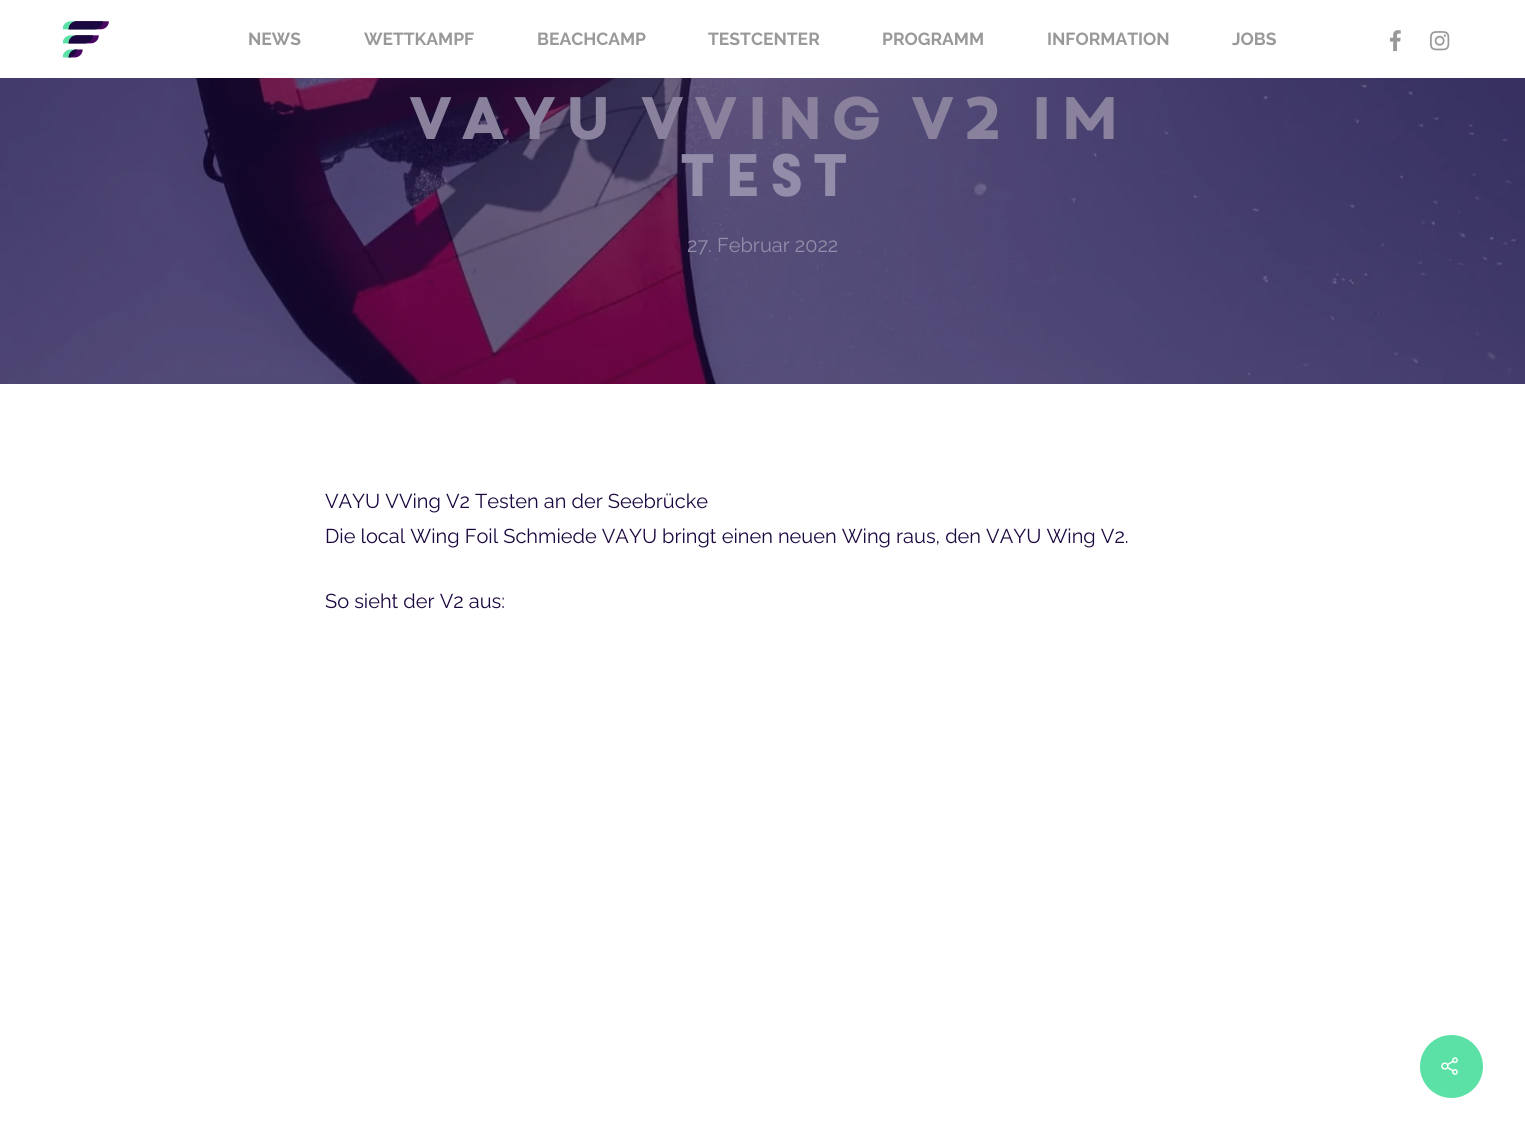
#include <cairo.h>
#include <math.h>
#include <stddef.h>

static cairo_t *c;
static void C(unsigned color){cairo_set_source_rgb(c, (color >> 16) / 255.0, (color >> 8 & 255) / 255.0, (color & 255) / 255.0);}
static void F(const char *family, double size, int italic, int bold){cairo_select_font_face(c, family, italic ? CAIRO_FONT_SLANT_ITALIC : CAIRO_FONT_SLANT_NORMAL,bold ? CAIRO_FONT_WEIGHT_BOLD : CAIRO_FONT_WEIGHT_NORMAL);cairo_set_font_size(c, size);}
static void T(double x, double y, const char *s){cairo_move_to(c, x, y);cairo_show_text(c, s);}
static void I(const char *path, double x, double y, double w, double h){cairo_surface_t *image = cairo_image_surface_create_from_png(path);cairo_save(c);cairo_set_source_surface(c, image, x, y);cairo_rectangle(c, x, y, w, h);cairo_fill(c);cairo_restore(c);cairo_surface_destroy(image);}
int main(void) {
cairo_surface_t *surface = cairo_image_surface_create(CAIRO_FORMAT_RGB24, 1525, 1139);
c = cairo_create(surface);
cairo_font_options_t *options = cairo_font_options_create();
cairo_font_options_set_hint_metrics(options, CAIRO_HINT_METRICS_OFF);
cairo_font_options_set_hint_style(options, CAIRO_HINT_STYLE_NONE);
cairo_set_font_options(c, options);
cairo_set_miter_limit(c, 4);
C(0xffffff);
cairo_paint(c);
I("1.png",63,21,46,37);
F("Raleway",17.5,0,1);
C(0x999999);
T(248,45,"NEWS");
T(364,45,"WETTKAMPF");
T(537,45,"BEACHCAMP");
T(708,45,"TESTCENTER");
T(882,45,"PROGRAMM");
T(1047,45,"INFORMATION");
T(1232,45,"JOBS");
I("2.png",1389,30,12,22);
I("3.png",1430,31,20,20);
I("4.png",0,78,1525,306);
F("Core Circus",57.4,0,1);
C(0x8a829d);
T(403,139,"VAYU VVing V2 im");
C(0x938da9);
T(674,196,"Test");
F("Raleway",20,0,0);
T(687,252,"27. Februar 2022");
C(0x1c0840);
T(325,508,"VAYU VVing V2 Testen an der Seebrücke");
T(325,543,"Die local Wing Foil Schmiede VAYU bringt einen neuen Wing raus, den VAYU Wing V2.");
T(325,608,"So sieht der V2 aus:");
C(0x5be0a6);
cairo_new_path(c);
cairo_arc(c,1451.5,1066.5,31.5,0,2 * M_PI);
cairo_fill(c);
I("5.png",1441,1057,17,18);
cairo_surface_write_to_png(surface, "o.png");
cairo_font_options_destroy(options);
cairo_destroy(c);
cairo_surface_destroy(surface);
return 0;
}
